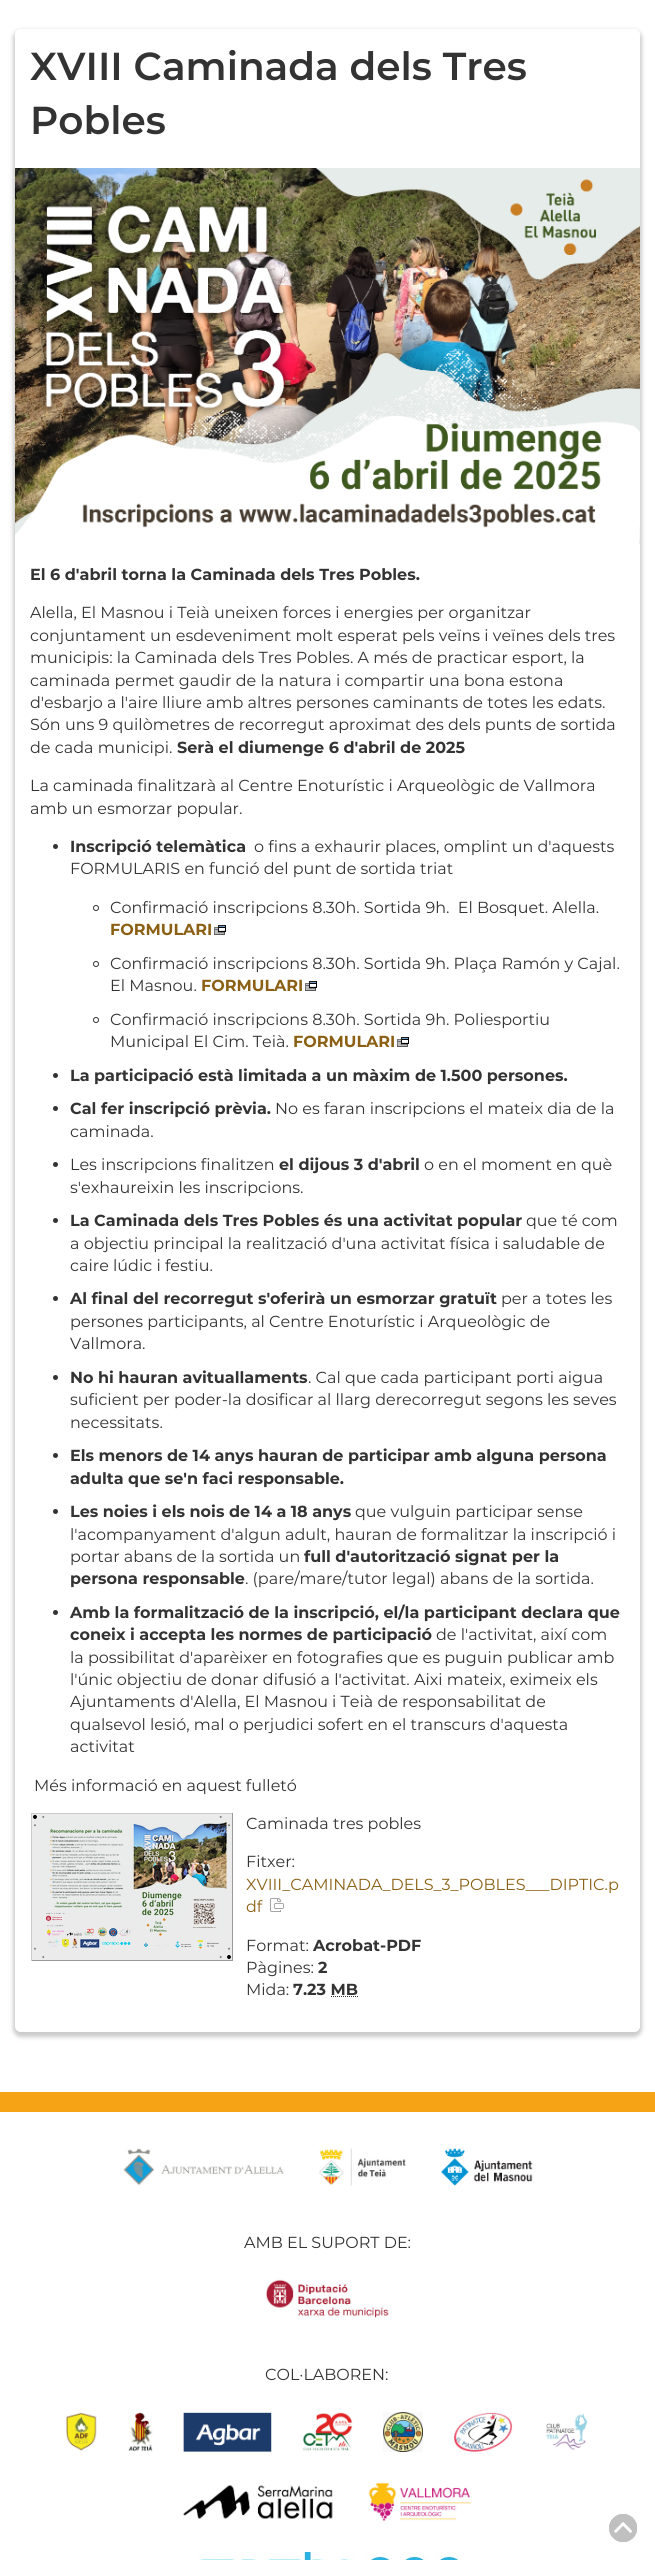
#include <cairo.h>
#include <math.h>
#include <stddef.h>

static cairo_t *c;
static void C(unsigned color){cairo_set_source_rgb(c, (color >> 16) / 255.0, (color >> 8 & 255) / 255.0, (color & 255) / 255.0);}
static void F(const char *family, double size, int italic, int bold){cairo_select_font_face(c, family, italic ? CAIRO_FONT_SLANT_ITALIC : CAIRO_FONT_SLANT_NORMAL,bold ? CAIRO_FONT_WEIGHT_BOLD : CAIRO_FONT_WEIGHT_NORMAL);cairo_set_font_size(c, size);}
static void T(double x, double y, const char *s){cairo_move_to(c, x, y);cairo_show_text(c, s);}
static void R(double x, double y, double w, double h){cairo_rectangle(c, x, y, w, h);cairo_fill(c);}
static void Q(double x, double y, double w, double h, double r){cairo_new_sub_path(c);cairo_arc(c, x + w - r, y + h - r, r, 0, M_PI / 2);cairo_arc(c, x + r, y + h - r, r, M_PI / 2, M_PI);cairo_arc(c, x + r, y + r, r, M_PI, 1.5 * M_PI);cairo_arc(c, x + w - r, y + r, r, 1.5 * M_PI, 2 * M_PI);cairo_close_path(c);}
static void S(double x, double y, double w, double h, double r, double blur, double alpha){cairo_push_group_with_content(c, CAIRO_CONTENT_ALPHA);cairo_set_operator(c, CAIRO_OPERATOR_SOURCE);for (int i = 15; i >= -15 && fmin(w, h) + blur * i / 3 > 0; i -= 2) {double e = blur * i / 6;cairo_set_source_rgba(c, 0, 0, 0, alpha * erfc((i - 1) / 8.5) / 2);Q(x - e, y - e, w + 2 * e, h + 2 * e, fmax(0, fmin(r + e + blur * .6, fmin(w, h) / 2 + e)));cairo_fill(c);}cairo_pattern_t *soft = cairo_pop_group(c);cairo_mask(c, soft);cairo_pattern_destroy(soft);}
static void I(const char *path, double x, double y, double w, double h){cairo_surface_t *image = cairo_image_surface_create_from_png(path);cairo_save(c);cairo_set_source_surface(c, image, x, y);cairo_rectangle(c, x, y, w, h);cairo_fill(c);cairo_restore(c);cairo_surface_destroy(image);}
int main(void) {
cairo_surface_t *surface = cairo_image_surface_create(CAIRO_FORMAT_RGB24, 655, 2560);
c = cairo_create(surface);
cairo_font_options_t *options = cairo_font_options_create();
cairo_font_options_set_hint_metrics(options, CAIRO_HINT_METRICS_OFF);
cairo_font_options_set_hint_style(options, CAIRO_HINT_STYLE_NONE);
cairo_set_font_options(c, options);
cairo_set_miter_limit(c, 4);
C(0xffffff);
cairo_paint(c);
cairo_save(c);
cairo_set_fill_rule(c,CAIRO_FILL_RULE_EVEN_ODD);
cairo_new_path(c);
cairo_move_to(c,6,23);
cairo_line_to(c,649,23);
cairo_line_to(c,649,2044);
cairo_line_to(c,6,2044);
cairo_close_path(c);
cairo_move_to(c,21,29);
cairo_line_to(c,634,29);
cairo_curve_to(c,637.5,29,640,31.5,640,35);
cairo_line_to(c,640,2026);
cairo_curve_to(c,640,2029.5,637.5,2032,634,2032);
cairo_line_to(c,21,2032);
cairo_curve_to(c,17.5,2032,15,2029.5,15,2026);
cairo_line_to(c,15,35);
cairo_curve_to(c,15,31.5,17.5,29,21,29);
cairo_close_path(c);
cairo_clip(c);
C(0xcccccc);
S(13,30,629,2007,8,2,1);
cairo_restore(c);
F("Montserrat SemiBold",39,0,0);
C(0x333333);
T(30,80,"XVIII Caminada dels Tres");
T(30,134,"Pobles");
I("1.png",15,168,625,376);
F("Montserrat",16,0,1);
T(30,580,"El 6 d'abril torna la Caminada dels Tres Pobles.");
F("Montserrat",16,0,0);
T(30,618,"Alella, El Masnou i Teià uneixen forces i energies per organitzar");
T(30,641,"conjuntament un esdeveniment molt esperat pels veïns i veïnes dels tres");
T(30,663,"municipis: la Caminada dels Tres Pobles. A més de practicar esport, la");
T(30,686,"caminada permet gaudir de la natura i compartir una bona estona");
T(30,708,"d'esbarjo a l'aire lliure amb altres persones caminants de totes les edats.");
T(30,730,"Són uns 9 quilòmetres de recorregut aproximat des dels punts de sortida");
T(30,753,"de cada municipi.");
F("Montserrat",16,0,1);
T(177,753,"Serà el diumenge 6 d'abril de 2025");
F("Montserrat",16,0,0);
T(30,791,"La caminada finalitzarà al Centre Enoturístic i Arqueològic de Vallmora");
T(30,814,"amb un esmorzar popular.");
cairo_new_path(c);
cairo_arc(c,55.5,846.5,2.5,0,2 * M_PI);
cairo_fill(c);
F("Montserrat",16,0,1);
T(70,852,"Inscripció telemàtica");
F("Montserrat",16,0,0);
T(254,852,"o fins a exhaurir places, omplint un d'aquests");
T(70,874,"FORMULARIS en funció del punt de sortida triat");
cairo_new_path(c);
cairo_arc(c,96,908,2.5,0,2 * M_PI);
cairo_set_line_width(c,1);
cairo_stroke(c);
T(110,913,"Confirmació inscripcions 8.30h. Sortida 9h.  El Bosquet. Alella.");
F("Montserrat",16,0,1);
C(0x8b6014);
T(110,935,"FORMULARI");
I("2.png",214,925,12,10);
cairo_arc(c,96,964,2.5,0,2 * M_PI);
C(0x333333);
cairo_stroke(c);
F("Montserrat",16,0,0);
T(110,969,"Confirmació inscripcions 8.30h. Sortida 9h. Plaça Ramón y Cajal.");
T(110,991,"El Masnou.");
F("Montserrat",16,0,1);
C(0x8b6014);
T(201,991,"FORMULARI");
I("2.png",305,981,12,10);
cairo_arc(c,96,1020,2.5,0,2 * M_PI);
C(0x333333);
cairo_stroke(c);
F("Montserrat",16,0,0);
T(110,1025,"Confirmació inscripcions 8.30h. Sortida 9h. Poliesportiu");
T(110,1047,"Municipal El Cim. Teià.");
F("Montserrat",16,0,1);
C(0x8b6014);
T(293,1047,"FORMULARI");
I("2.png",397,1037,12,10);
C(0x333333);
cairo_arc(c,55.5,1075.5,2.5,0,2 * M_PI);
cairo_fill(c);
T(70,1081,"La participació està limitada a un màxim de 1.500 persones.");
cairo_new_path(c);
cairo_arc(c,55.5,1108.5,2.5,0,2 * M_PI);
cairo_fill(c);
T(70,1114,"Cal fer inscripció prèvia.");
F("Montserrat",16,0,0);
T(275,1114,"No es faran inscripcions el mateix dia de la");
T(70,1137,"caminada.");
cairo_new_path(c);
cairo_arc(c,55.5,1164.5,2.5,0,2 * M_PI);
cairo_fill(c);
T(70,1170,"Les inscripcions finalitzen");
F("Montserrat",16,0,1);
T(279,1170,"el dijous 3 d'abril");
F("Montserrat",16,0,0);
T(424,1170,"o en el moment en què");
T(70,1193,"s'exhaureixin les inscripcions.");
cairo_new_path(c);
cairo_arc(c,55.5,1220.5,2.5,0,2 * M_PI);
cairo_fill(c);
F("Montserrat",16,0,1);
T(70,1226,"La Caminada dels Tres Pobles és una activitat popular");
F("Montserrat",16,0,0);
T(526,1226,"que té com");
T(70,1249,"a objectiu principal la realització d'una activitat física i saludable de");
T(70,1271,"caire lúdic i festiu.");
cairo_new_path(c);
cairo_arc(c,55.5,1298.5,2.5,0,2 * M_PI);
cairo_fill(c);
F("Montserrat",16,0,1);
T(70,1304,"Al final del recorregut s'oferirà un esmorzar gratuït");
F("Montserrat",16,0,0);
T(501,1304,"per a totes les");
T(70,1327,"persones participants, al Centre Enoturístic i Arqueològic de");
T(70,1349,"Vallmora.");
cairo_new_path(c);
cairo_arc(c,55.5,1377.5,2.5,0,2 * M_PI);
cairo_fill(c);
F("Montserrat",16,0,1);
T(70,1383,"No hi hauran avituallaments");
F("Montserrat",16,0,0);
T(308,1383,". Cal que cada participant porti aigua");
T(70,1405,"suficient per poder-la dosificar al llarg derecorregut segons les seves");
T(70,1428,"necessitats.");
cairo_new_path(c);
cairo_arc(c,55.5,1455.5,2.5,0,2 * M_PI);
cairo_fill(c);
F("Montserrat",16,0,1);
T(70,1461,"Els menors de 14 anys hauran de participar amb alguna persona");
T(70,1484,"adulta que se'n faci responsable.");
cairo_new_path(c);
cairo_arc(c,55.5,1511.5,2.5,0,2 * M_PI);
cairo_fill(c);
T(70,1517,"Les noies i els nois de 14 a 18 anys");
F("Montserrat",16,0,0);
T(355,1517,"que vulguin participar sense");
T(70,1540,"l'acompanyament d'algun adult, hauran de formalitzar la inscripció i");
T(70,1562,"portar abans de la sortida un");
F("Montserrat",16,0,1);
T(304,1562,"full d'autorització signat per la");
T(70,1584,"persona responsable");
F("Montserrat",16,0,0);
T(245,1584,". (pare/mare/tutor legal) abans de la sortida.");
cairo_new_path(c);
cairo_arc(c,55.5,1612.5,2.5,0,2 * M_PI);
cairo_fill(c);
F("Montserrat",16,0,1);
T(70,1618,"Amb la formalització de la inscripció, el/la participant declara que");
T(70,1640,"coneix i accepta les normes de participació");
F("Montserrat",16,0,0);
T(436,1640,"de l'activitat, així com");
T(70,1663,"la possibilitat d'aparèixer en fotografies que es puguin publicar amb");
T(70,1685,"l'únic objectiu de donar difusió a l'activitat. Aixi mateix, eximeix els");
T(70,1707,"Ajuntaments d'Alella, El Masnou i Teià de responsabilitat de");
T(70,1730,"qualsevol lesió, mal o perjudici sofert en el transcurs d'aquesta");
T(70,1752,"activitat");
T(34,1791,"Més informació en aquest fulletó");
C(0xcccccc);
R(31,1813,202,1);
C(0x999999);
R(232,1813,1,148);
R(31,1960,202,1);
C(0xcccccc);
R(31,1813,1,148);
I("3.png",32,1814,200,146);
C(0x333333);
T(246,1829,"Caminada tres pobles");
T(246,1867,"Fitxer:");
C(0x8b6014);
T(246,1890,"XVIII_CAMINADA_DELS_3_POBLES___DIPTIC.p");
T(246,1912,"df");
I("4.png",270,1898,14,14);
C(0x333333);
T(246,1951,"Format:");
F("Montserrat",16,0,1);
T(313,1951,"Acrobat-PDF");
F("Montserrat",16,0,0);
T(246,1973,"Pàgines:");
F("Montserrat",16,0,1);
T(318,1973,"2");
F("Montserrat",16,0,0);
T(246,1995,"Mida:");
F("Montserrat",16,0,1);
T(293,1995,"7.23 MB");
cairo_new_path(c);
cairo_move_to(c,331,1996.5);
cairo_line_to(c,358.5,1996.5);
cairo_set_dash(c,(double[]){1,1},2,0);
cairo_stroke(c);
C(0xf6a315);
R(0,2092,655,20);
I("5.png",123,2148,161,38);
I("6.png",319,2148,87,38);
I("7.png",440,2148,93,38);
F("Montserrat",16,0,0);
C(0x333333);
T(244,2248,"AMB EL SUPORT DE:");
I("8.png",266,2279,123,39);
T(265,2380,"COL·LABOREN:");
I("9.png",66,2412,31,39);
I("10.png",128,2412,25,40);
I("11.png",183,2412,89,40);
I("12.png",302,2412,51,39);
I("13.png",383,2412,40,40);
I("14.png",453,2412,60,40);
I("15.png",546,2413,42,37);
I("16.png",183,2485,150,34);
I("17.png",368,2482,104,39);
I("18.png",198,2552,262,8);
I("19.png",609,2514,29,29);
cairo_surface_write_to_png(surface, "o.png");
cairo_font_options_destroy(options);
cairo_destroy(c);
cairo_surface_destroy(surface);
return 0;
}
